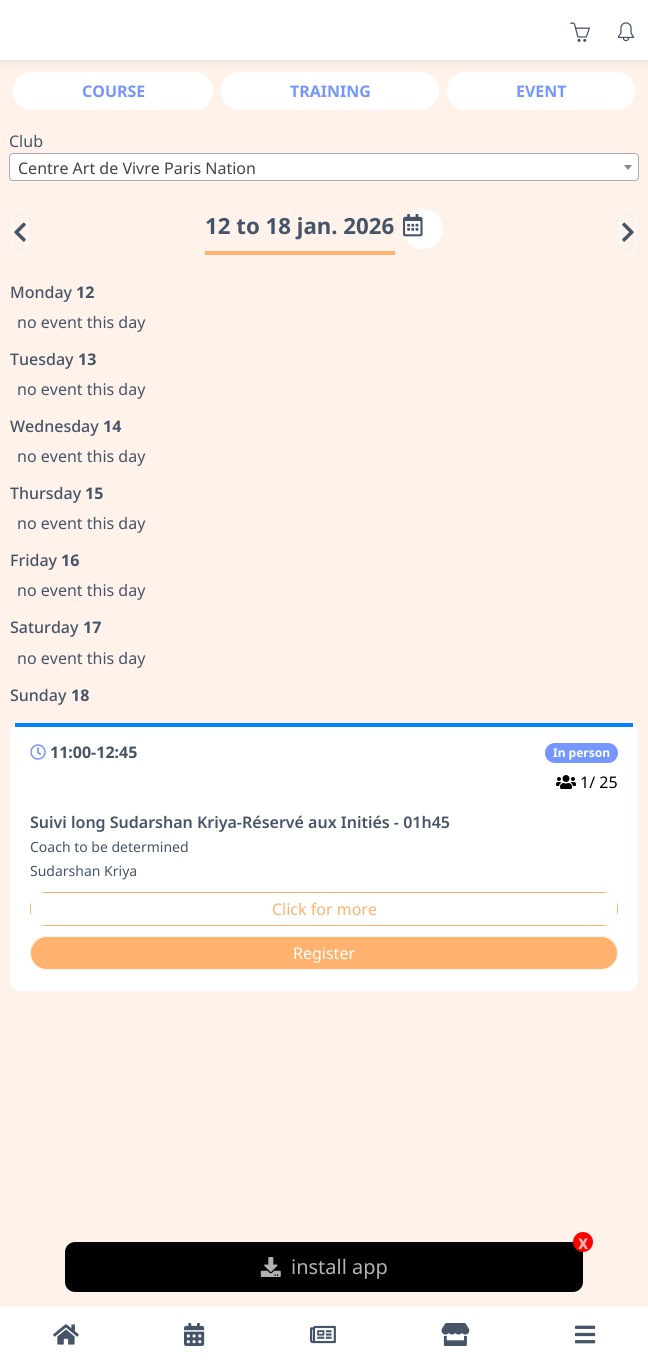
#include <cairo.h>
#include <math.h>
#include <stddef.h>

static cairo_t *c;
static void C(unsigned color){cairo_set_source_rgb(c, (color >> 16) / 255.0, (color >> 8 & 255) / 255.0, (color & 255) / 255.0);}
static void F(const char *family, double size, int italic, int bold){cairo_select_font_face(c, family, italic ? CAIRO_FONT_SLANT_ITALIC : CAIRO_FONT_SLANT_NORMAL,bold ? CAIRO_FONT_WEIGHT_BOLD : CAIRO_FONT_WEIGHT_NORMAL);cairo_set_font_size(c, size);}
static void T(double x, double y, const char *s){cairo_move_to(c, x, y);cairo_show_text(c, s);}
static void R(double x, double y, double w, double h){cairo_rectangle(c, x, y, w, h);cairo_fill(c);}
static void Q(double x, double y, double w, double h, double r){cairo_new_sub_path(c);cairo_arc(c, x + w - r, y + h - r, r, 0, M_PI / 2);cairo_arc(c, x + r, y + h - r, r, M_PI / 2, M_PI);cairo_arc(c, x + r, y + r, r, M_PI, 1.5 * M_PI);cairo_arc(c, x + w - r, y + r, r, 1.5 * M_PI, 2 * M_PI);cairo_close_path(c);}
static void S(double x, double y, double w, double h, double r, double blur, double alpha){cairo_push_group_with_content(c, CAIRO_CONTENT_ALPHA);cairo_set_operator(c, CAIRO_OPERATOR_SOURCE);for (int i = 15; i >= -15 && fmin(w, h) + blur * i / 3 > 0; i -= 2) {double e = blur * i / 6;cairo_set_source_rgba(c, 0, 0, 0, alpha * erfc((i - 1) / 8.5) / 2);Q(x - e, y - e, w + 2 * e, h + 2 * e, fmax(0, fmin(r + e + blur * .6, fmin(w, h) / 2 + e)));cairo_fill(c);}cairo_pattern_t *soft = cairo_pop_group(c);cairo_mask(c, soft);cairo_pattern_destroy(soft);}
static void I(const char *path, double x, double y, double w, double h){cairo_surface_t *image = cairo_image_surface_create_from_png(path);cairo_save(c);cairo_set_source_surface(c, image, x, y);cairo_rectangle(c, x, y, w, h);cairo_fill(c);cairo_restore(c);cairo_surface_destroy(image);}
int main(void) {
cairo_surface_t *surface = cairo_image_surface_create(CAIRO_FORMAT_RGB24, 648, 1362);
c = cairo_create(surface);
cairo_font_options_t *options = cairo_font_options_create();
cairo_font_options_set_hint_metrics(options, CAIRO_HINT_METRICS_OFF);
cairo_font_options_set_hint_style(options, CAIRO_HINT_STYLE_NONE);
cairo_set_font_options(c, options);
cairo_set_miter_limit(c, 4);
C(0xfff2eb);
cairo_paint(c);
C(0xffffff);
Q(13,72,200,38,19);
cairo_fill(c);
Q(13.5,72.5,199,37,18.5);
cairo_set_source_rgba(c,1,1,1,0.9);
cairo_set_line_width(c,1);
cairo_stroke(c);
C(0xffffff);
Q(221,72,218,38,19);
cairo_fill(c);
Q(221.5,72.5,217,37,18.5);
cairo_set_source_rgba(c,1,1,1,0.9);
cairo_stroke(c);
C(0xffffff);
Q(447,72,188,38,19);
cairo_fill(c);
Q(447.5,72.5,187,37,18.5);
cairo_set_source_rgba(c,1,1,1,0.9);
cairo_stroke(c);
C(0x70717b);
S(0,2,648,60,0,4.5,.15);
C(0xffffff);
R(0,0,648,60);
I("1.png",570,22,20,20);
I("2.png",617,22,18,20);
F("Noto Sans",16,0,1);
C(0x7596ff);
T(82,97,"COURSE");
T(290,97,"TRAINING");
T(516,97,"EVENT");
F("Noto Sans",16,0,0);
C(0x465467);
T(9,147,"Club");
C(0xffffff);
Q(9.5,153.5,629,27,3.5);
cairo_fill_preserve(c);
C(0xaaaaaa);
cairo_stroke(c);
C(0x444444);
T(18,174,"Centre Art de Vivre Paris Nation");
C(0x888888);
cairo_new_path(c);
cairo_move_to(c,624,165);
cairo_line_to(c,632,165);
cairo_line_to(c,628,170);
cairo_close_path(c);
cairo_fill(c);
Q(12.5,209.5,15,45,7.5);
C(0xfffefd);
cairo_stroke(c);
I("3.png",14,222,12,20);
C(0xffb26d);
R(205,251,190,4);
F("Noto Sans",22.25,0,1);
C(0x465467);
T(205,234,"12 to 18 jan. 2026");
C(0xffffff);
cairo_new_path(c);
cairo_arc(c,423,229,20,0,2 * M_PI);
cairo_fill(c);
I("4.png",403,214,20,23);
Q(620.5,209.5,15,45,7.5);
C(0xfffefd);
cairo_stroke(c);
I("5.png",622,222,12,20);
F("Noto Sans Medium",16,0,0);
C(0x465467);
T(10,298,"Monday");
F("Noto Sans",16,0,1);
T(76,298,"12");
F("Noto Sans",16,0,0);
T(17,328,"no event this day");
F("Noto Sans Medium",16,0,0);
T(10,365,"Tuesday");
F("Noto Sans",16,0,1);
T(78,365,"13");
F("Noto Sans",16,0,0);
T(17,395,"no event this day");
F("Noto Sans Medium",16,0,0);
T(10,432,"Wednesday");
F("Noto Sans",16,0,1);
T(103,432,"14");
F("Noto Sans",16,0,0);
T(17,462,"no event this day");
F("Noto Sans Medium",16,0,0);
T(10,499,"Thursday");
F("Noto Sans",16,0,1);
T(85,499,"15");
F("Noto Sans",16,0,0);
T(17,529,"no event this day");
F("Noto Sans Medium",16,0,0);
T(10,566,"Friday");
F("Noto Sans",16,0,1);
T(61,566,"16");
F("Noto Sans",16,0,0);
T(17,596,"no event this day");
F("Noto Sans Medium",16,0,0);
T(10,633,"Saturday");
F("Noto Sans",16,0,1);
T(83,633,"17");
F("Noto Sans",16,0,0);
T(17,664,"no event this day");
F("Noto Sans Medium",16,0,0);
T(10,701,"Sunday");
F("Noto Sans",16,0,1);
T(71,701,"18");
C(0xffffff);
Q(10,723,628,268,10);
cairo_fill(c);
C(0x0081ff);
R(15,723,618,4);
I("6.png",30,744,16,16);
C(0x465467);
T(50,758,"11:00-12:45");
C(0x7596ff);
Q(545,743,73,20,10);
cairo_fill(c);
F("Noto Sans",12,0,1);
C(0xffffff);
T(553,757,"In person");
I("7.png",556,775,20,14);
F("Noto Sans",16,0,0);
C(0x000000);
T(580,788,"1/ 25");
F("Noto Sans SemiBold",16,0,0);
C(0x465467);
T(30,828,"Suivi long Sudarshan Kriya-Réservé aux Initiés - 01h45");
F("Noto Sans",14,0,0);
T(30,852,"Coach to be determined");
T(30,876,"Sudarshan Kriya");
Q(30.5,892.5,587,33,15.5);
C(0xffb26d);
cairo_stroke(c);
cairo_set_source_rgba(c,1,1,1,0.9);
R(31,893,586,32);
F("Noto Sans",16,0,0);
C(0xffb26d);
T(272,915,"Click for more");
Q(30,936,588,34,17);
cairo_fill(c);
Q(30.5,936.5,587,33,16.5);
cairo_set_source_rgba(c,1,1,1,0.9);
cairo_stroke(c);
C(0xffffff);
T(293,959,"Register");
C(0x000000);
Q(65,1242,518,50,10);
cairo_fill(c);
C(0xff0000);
cairo_arc(c,583,1242,10,0,2 * M_PI);
cairo_fill(c);
F("Roboto",20,0,1);
C(0xffb3b3);
T(578,1249,"x");
I("8.png",260,1257,21,20);
F("Noto Sans",20,0,0);
C(0xb3b3b3);
T(291,1274,"install app");
C(0xffffff);
R(0,1307,648,55);
I("9.png",53,1324,26,21);
I("10.png",184,1323,21,23);
I("11.png",310,1325,26,19);
I("12.png",441,1323,29,23);
I("13.png",575,1325,21,19);
cairo_surface_write_to_png(surface, "o.png");
cairo_font_options_destroy(options);
cairo_destroy(c);
cairo_surface_destroy(surface);
return 0;
}
